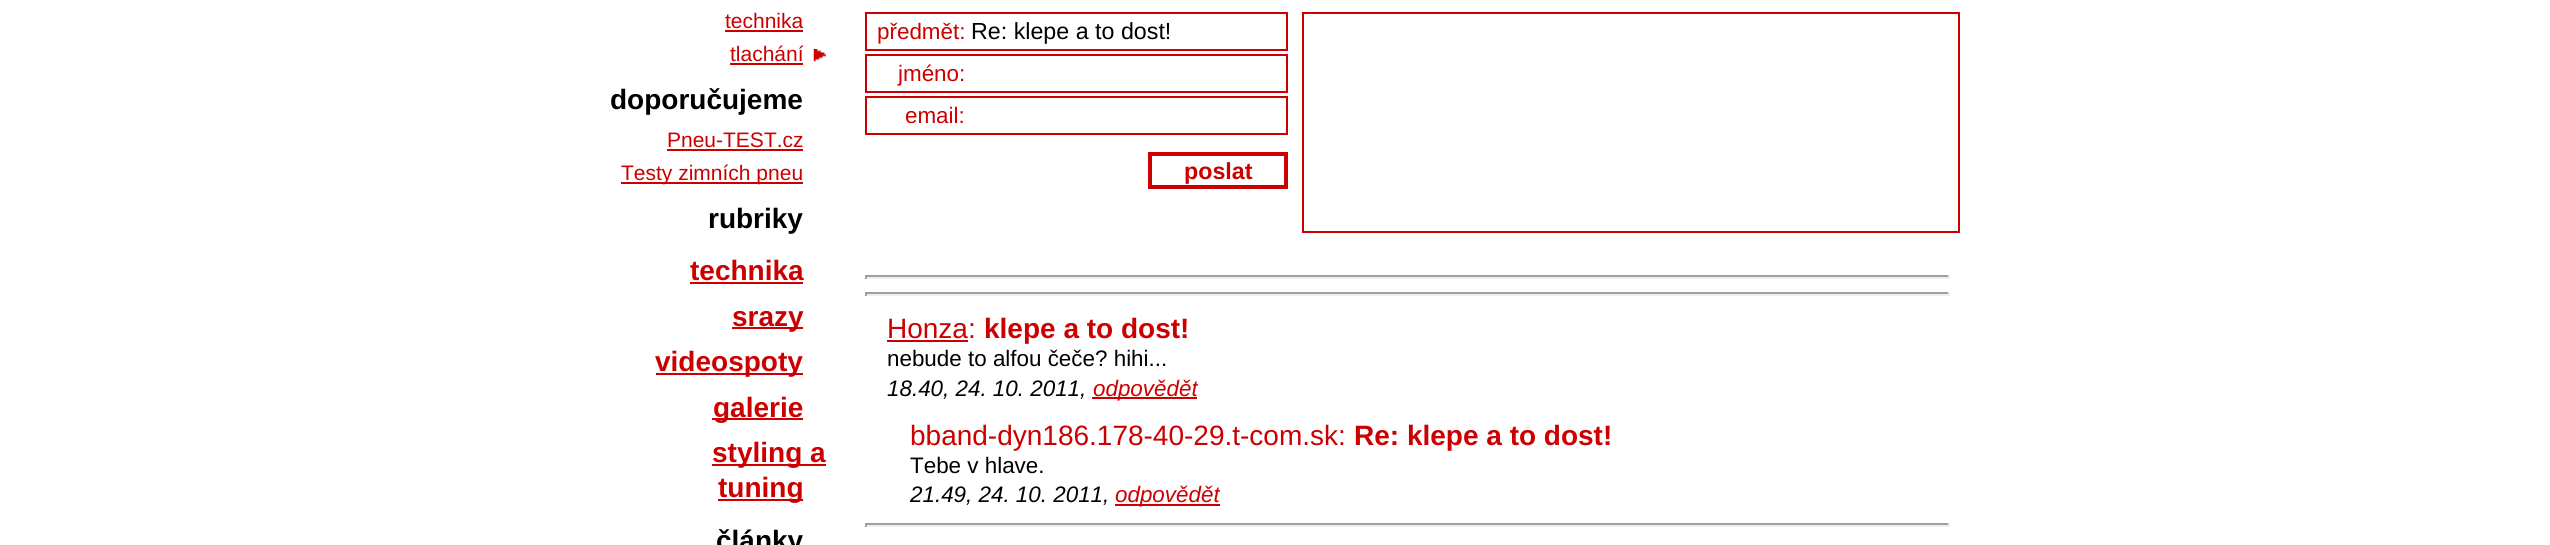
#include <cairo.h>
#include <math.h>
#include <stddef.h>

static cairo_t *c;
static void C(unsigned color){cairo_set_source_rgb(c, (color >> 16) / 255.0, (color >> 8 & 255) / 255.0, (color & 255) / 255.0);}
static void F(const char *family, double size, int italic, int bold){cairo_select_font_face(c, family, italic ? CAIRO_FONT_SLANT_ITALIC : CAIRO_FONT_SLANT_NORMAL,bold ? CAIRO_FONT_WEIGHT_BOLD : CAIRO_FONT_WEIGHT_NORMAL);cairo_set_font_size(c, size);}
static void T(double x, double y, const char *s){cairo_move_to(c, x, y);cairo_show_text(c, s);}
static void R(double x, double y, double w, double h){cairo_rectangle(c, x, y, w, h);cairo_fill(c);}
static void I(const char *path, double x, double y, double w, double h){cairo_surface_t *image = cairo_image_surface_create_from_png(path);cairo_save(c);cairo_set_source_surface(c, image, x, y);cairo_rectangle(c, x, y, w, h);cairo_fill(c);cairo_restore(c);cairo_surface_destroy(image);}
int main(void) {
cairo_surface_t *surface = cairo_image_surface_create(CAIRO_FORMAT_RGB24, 2550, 545);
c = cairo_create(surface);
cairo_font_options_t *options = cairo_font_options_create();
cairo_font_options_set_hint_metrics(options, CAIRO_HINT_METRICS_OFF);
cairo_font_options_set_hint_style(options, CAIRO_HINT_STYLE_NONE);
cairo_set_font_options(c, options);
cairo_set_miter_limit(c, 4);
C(0xffffff);
cairo_paint(c);
F("Liberation Sans",21,0,0);
C(0xcc0000);
T(725,28,"technika");
R(725,30,78,2);
T(730,61,"tlachání");
R(730,63,73,2);
I("1.png",813,49,13,13);
cairo_rectangle(c,866,13,421,37);
cairo_stroke(c);
F("Liberation Sans",22.4,0,0);
T(877,39,"předmět:");
F("Liberation Sans",23.25,0,0);
C(0x000000);
T(971,39,"Re: klepe a to dost!");
cairo_rectangle(c,866,55,421,37);
C(0xcc0000);
cairo_stroke(c);
F("Liberation Sans",22.4,0,0);
T(898,81,"jméno:");
cairo_rectangle(c,866,97,421,37);
cairo_stroke(c);
T(905,123,"email:");
cairo_rectangle(c,1150,154,136,33);
cairo_set_line_width(c,4);
cairo_stroke(c);
F("Liberation Sans",23.25,0,1);
T(1184,179,"poslat");
cairo_rectangle(c,1303,13,656,219);
cairo_set_line_width(c,2);
cairo_stroke(c);
C(0x9f9f9f);
R(865,275,1085,2);
C(0xeeeeee);
R(1948,275,2,4);
R(865,277,1085,2);
C(0x9f9f9f);
R(865,275,2,4);
R(865,292,1085,2);
C(0xeeeeee);
R(1948,292,2,4);
R(865,294,1085,2);
C(0x9f9f9f);
R(865,292,2,4);
F("Liberation Sans",28,0,0);
C(0xcc0000);
T(887,338,"Honza:");
R(887,340,81,2);
F("Liberation Sans",28,0,1);
T(984,338,"klepe a to dost!");
F("Liberation Sans",22.4,0,0);
C(0x000000);
T(887,366,"nebude to alfou čeče? hihi...");
F("Liberation Sans",22.4,1,0);
T(887,396,"18.40, 24. 10. 2011,");
C(0xcc0000);
R(1092,397,105,2);
T(1093,396,"odpovědět");
F("Liberation Sans",28,0,0);
T(910,445,"bband-dyn186.178-40-29.t-com.sk:");
F("Liberation Sans",28,0,1);
T(1354,445,"Re: klepe a to dost!");
F("Liberation Sans",22.4,0,0);
C(0x000000);
T(910,473,"Tebe v hlave.");
F("Liberation Sans",22.4,1,0);
T(910,502,"21.49, 24. 10. 2011,");
C(0xcc0000);
R(1115,504,105,2);
T(1115,502,"odpovědět");
C(0x9f9f9f);
R(865,523,1085,2);
C(0xeeeeee);
R(1948,523,2,4);
R(865,525,1085,2);
C(0x9f9f9f);
R(865,523,2,4);
F("Liberation Sans",28,0,1);
C(0x000000);
T(610,109,"doporučujeme");
F("Liberation Sans",21,0,0);
C(0xcc0000);
T(667,147,"Pneu-TEST.cz");
R(667,149,136,2);
R(621,182,182,2);
T(621,180,"Testy zimních pneu");
F("Liberation Sans",28,0,1);
C(0x000000);
T(708,228,"rubriky");
C(0xcc0000);
T(690,280,"technika");
R(690,282,113,2);
R(732,327,71,2);
T(732,326,"srazy");
R(656,373,147,2);
T(655,371,"videospoty");
R(712,418,91,2);
T(713,417,"galerie");
R(712,464,114,2);
T(712,462,"styling a");
R(718,499,85,2);
T(718,497,"tuning");
C(0x000000);
T(716,550,"články");
cairo_surface_write_to_png(surface, "o.png");
cairo_font_options_destroy(options);
cairo_destroy(c);
cairo_surface_destroy(surface);
return 0;
}
